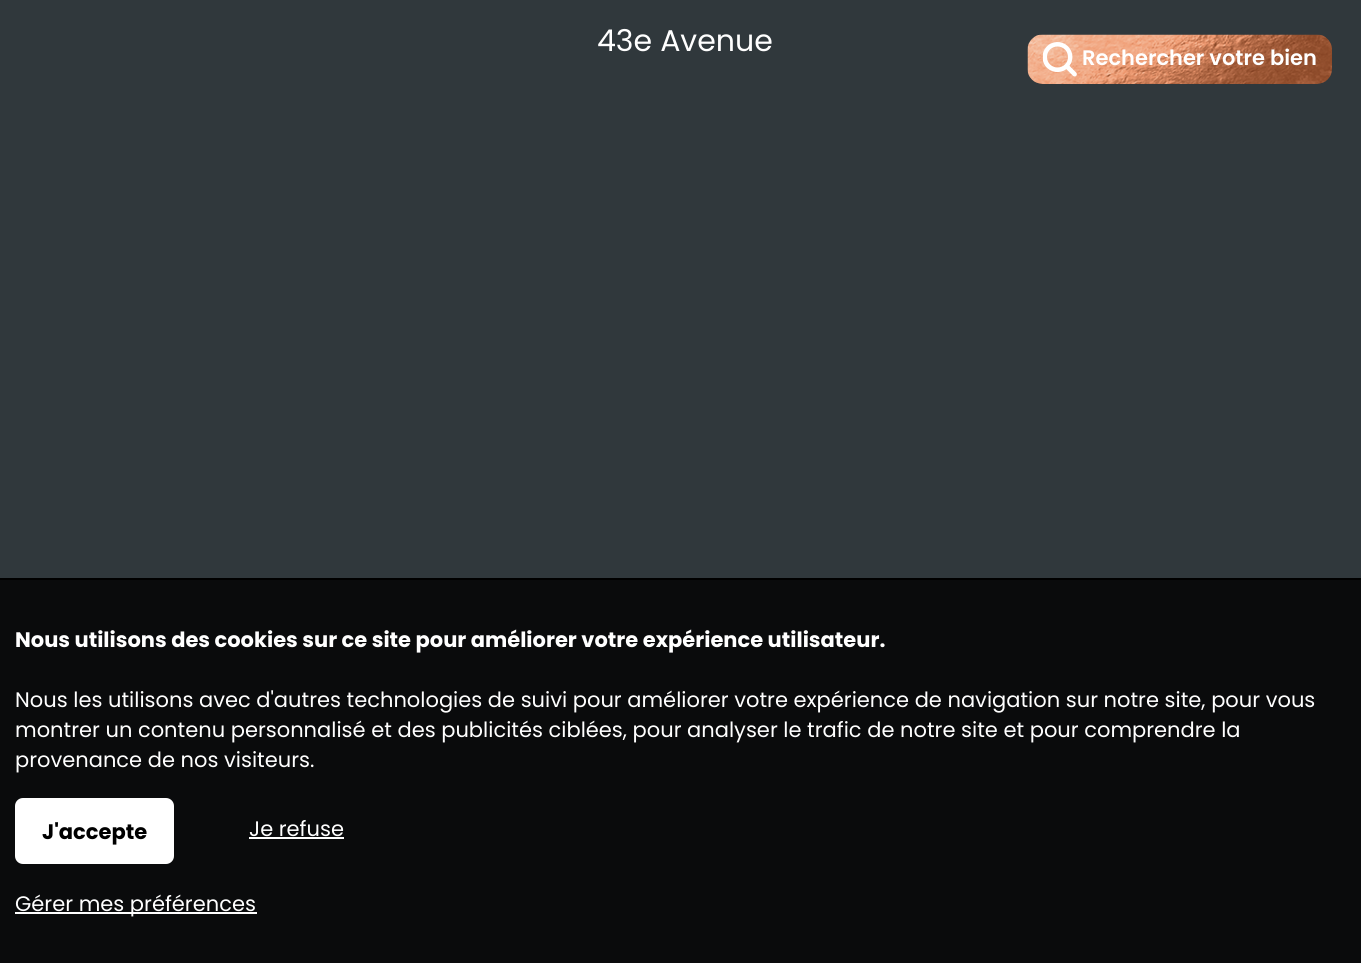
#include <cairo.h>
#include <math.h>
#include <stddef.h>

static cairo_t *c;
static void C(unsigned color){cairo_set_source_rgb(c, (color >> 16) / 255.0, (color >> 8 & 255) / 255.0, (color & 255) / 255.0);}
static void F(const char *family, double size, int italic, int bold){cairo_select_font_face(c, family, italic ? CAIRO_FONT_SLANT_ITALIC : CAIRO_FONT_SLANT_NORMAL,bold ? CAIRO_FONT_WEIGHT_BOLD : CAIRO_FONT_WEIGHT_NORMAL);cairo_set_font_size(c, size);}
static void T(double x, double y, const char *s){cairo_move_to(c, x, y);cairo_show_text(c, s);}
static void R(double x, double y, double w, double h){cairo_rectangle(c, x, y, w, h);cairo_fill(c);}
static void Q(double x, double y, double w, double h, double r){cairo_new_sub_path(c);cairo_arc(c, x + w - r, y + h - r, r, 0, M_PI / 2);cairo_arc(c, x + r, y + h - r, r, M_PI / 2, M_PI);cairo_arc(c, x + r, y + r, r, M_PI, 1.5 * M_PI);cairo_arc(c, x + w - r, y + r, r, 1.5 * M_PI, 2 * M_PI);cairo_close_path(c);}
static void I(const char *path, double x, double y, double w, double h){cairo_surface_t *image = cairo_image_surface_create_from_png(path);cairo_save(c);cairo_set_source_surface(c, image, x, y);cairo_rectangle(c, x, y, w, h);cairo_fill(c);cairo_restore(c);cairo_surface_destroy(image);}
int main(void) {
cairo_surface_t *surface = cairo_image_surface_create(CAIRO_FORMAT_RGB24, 1361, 963);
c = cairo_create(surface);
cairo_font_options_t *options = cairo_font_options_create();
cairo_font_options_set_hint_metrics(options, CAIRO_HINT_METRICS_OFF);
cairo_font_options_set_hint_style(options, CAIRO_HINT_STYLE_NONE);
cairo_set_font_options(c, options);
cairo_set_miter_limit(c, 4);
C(0x30383c);
cairo_paint(c);
F("Poppins",30,0,0);
C(0xffffff);
T(597,51,"43e Avenue");
I("1.png",1027,34,305,50);
I("2.png",1043,42,34,35);
F("Poppins SemiBold",21,0,0);
T(1082,65,"Rechercher votre bien");
C(0x0a0b0c);
R(0,580,1361,383);
C(0x000000);
R(0,578,1361,2);
F("Poppins",21,0,1);
C(0xffffff);
T(15,647,"Nous utilisons des cookies sur ce site pour améliorer votre expérience utilisateur.");
F("Poppins",21,0,0);
T(15,707,"Nous les utilisons avec d'autres technologies de suivi pour améliorer votre expérience de navigation sur notre site, pour vous");
T(15,737,"montrer un contenu personnalisé et des publicités ciblées, pour analyser le trafic de notre site et pour comprendre la");
T(15,767,"provenance de nos visiteurs.");
Q(15,798,159,66,8);
cairo_fill(c);
F("Poppins",21,0,1);
C(0x000000);
T(42,839,"J'accepte");
F("Poppins",21,0,0);
C(0xffffff);
T(249,836,"Je refuse");
R(249,837,95,2);
R(15,912,242,2);
T(15,911,"Gérer mes préférences");
cairo_surface_write_to_png(surface, "o.png");
cairo_font_options_destroy(options);
cairo_destroy(c);
cairo_surface_destroy(surface);
return 0;
}
